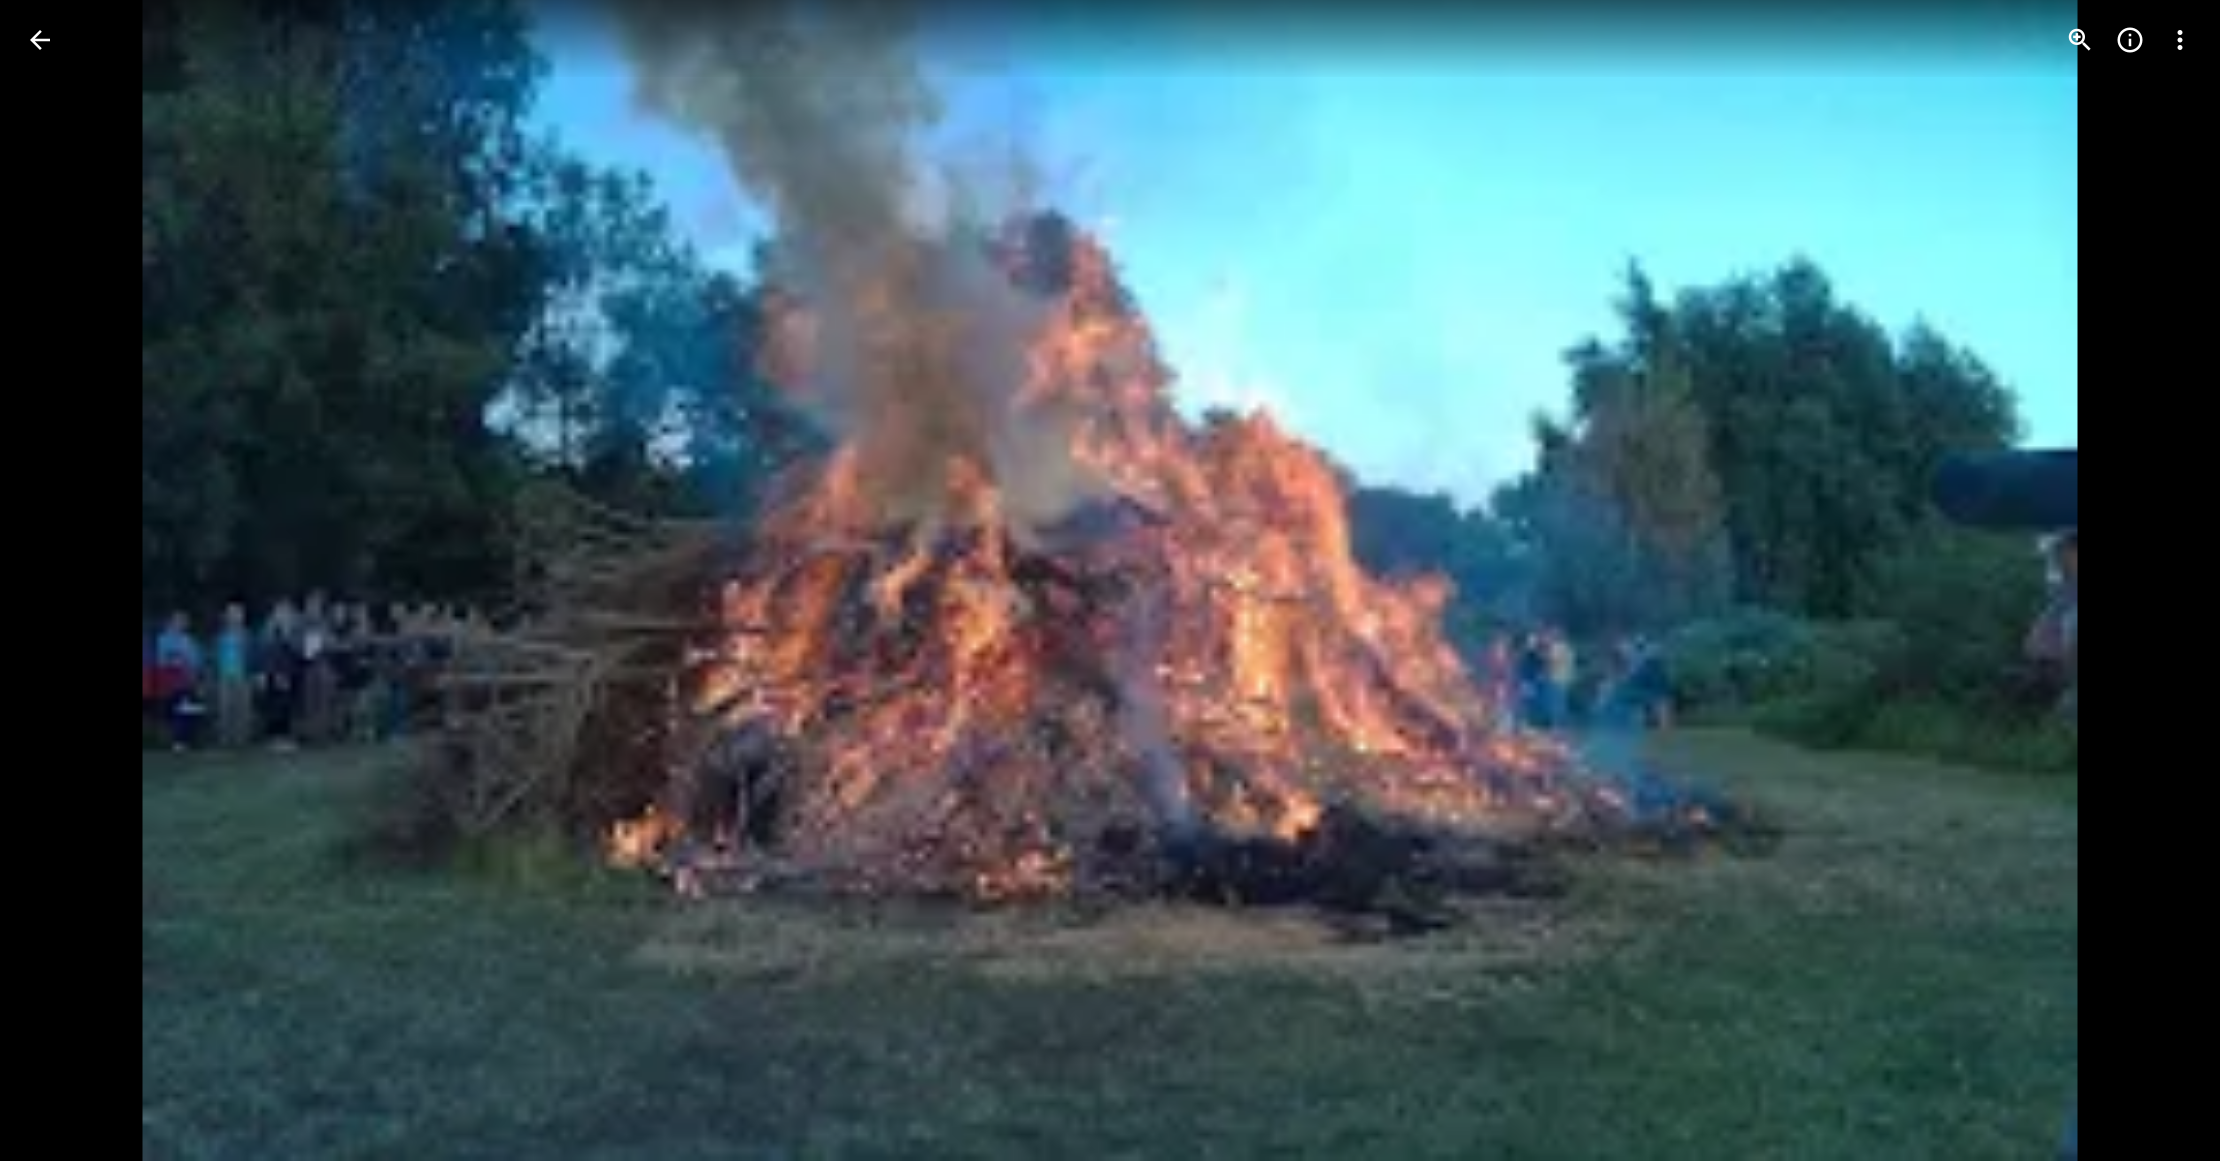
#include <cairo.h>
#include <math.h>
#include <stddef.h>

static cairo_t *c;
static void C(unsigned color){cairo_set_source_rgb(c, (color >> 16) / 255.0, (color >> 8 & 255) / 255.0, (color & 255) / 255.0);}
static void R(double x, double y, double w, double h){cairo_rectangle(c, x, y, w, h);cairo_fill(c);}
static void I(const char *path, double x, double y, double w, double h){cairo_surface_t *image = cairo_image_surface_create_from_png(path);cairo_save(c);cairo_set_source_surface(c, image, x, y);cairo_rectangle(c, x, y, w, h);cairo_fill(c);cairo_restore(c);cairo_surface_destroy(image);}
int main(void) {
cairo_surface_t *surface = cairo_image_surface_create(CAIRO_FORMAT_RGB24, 2220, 1161);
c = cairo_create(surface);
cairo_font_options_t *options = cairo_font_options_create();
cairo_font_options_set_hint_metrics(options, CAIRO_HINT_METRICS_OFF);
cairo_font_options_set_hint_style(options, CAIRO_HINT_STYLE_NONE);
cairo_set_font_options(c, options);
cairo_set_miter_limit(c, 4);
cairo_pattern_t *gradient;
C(0x000000);
cairo_paint(c);
I("5.png",142,0,1936,1161);
gradient = cairo_pattern_create_linear(1110,0,1110,80);
cairo_pattern_add_color_stop_rgba(gradient,0,0,0,0,.6);
cairo_pattern_add_color_stop_rgba(gradient,1,0,0,0,0);
cairo_set_source(c,gradient);
cairo_pattern_destroy(gradient);
R(142,0,1936,77);
I("1.png",30,30,20,20);
I("2.png",2068,28,23,23);
I("3.png",2117,27,26,26);
I("4.png",2177,30,6,20);
cairo_surface_write_to_png(surface, "o.png");
cairo_font_options_destroy(options);
cairo_destroy(c);
cairo_surface_destroy(surface);
return 0;
}
